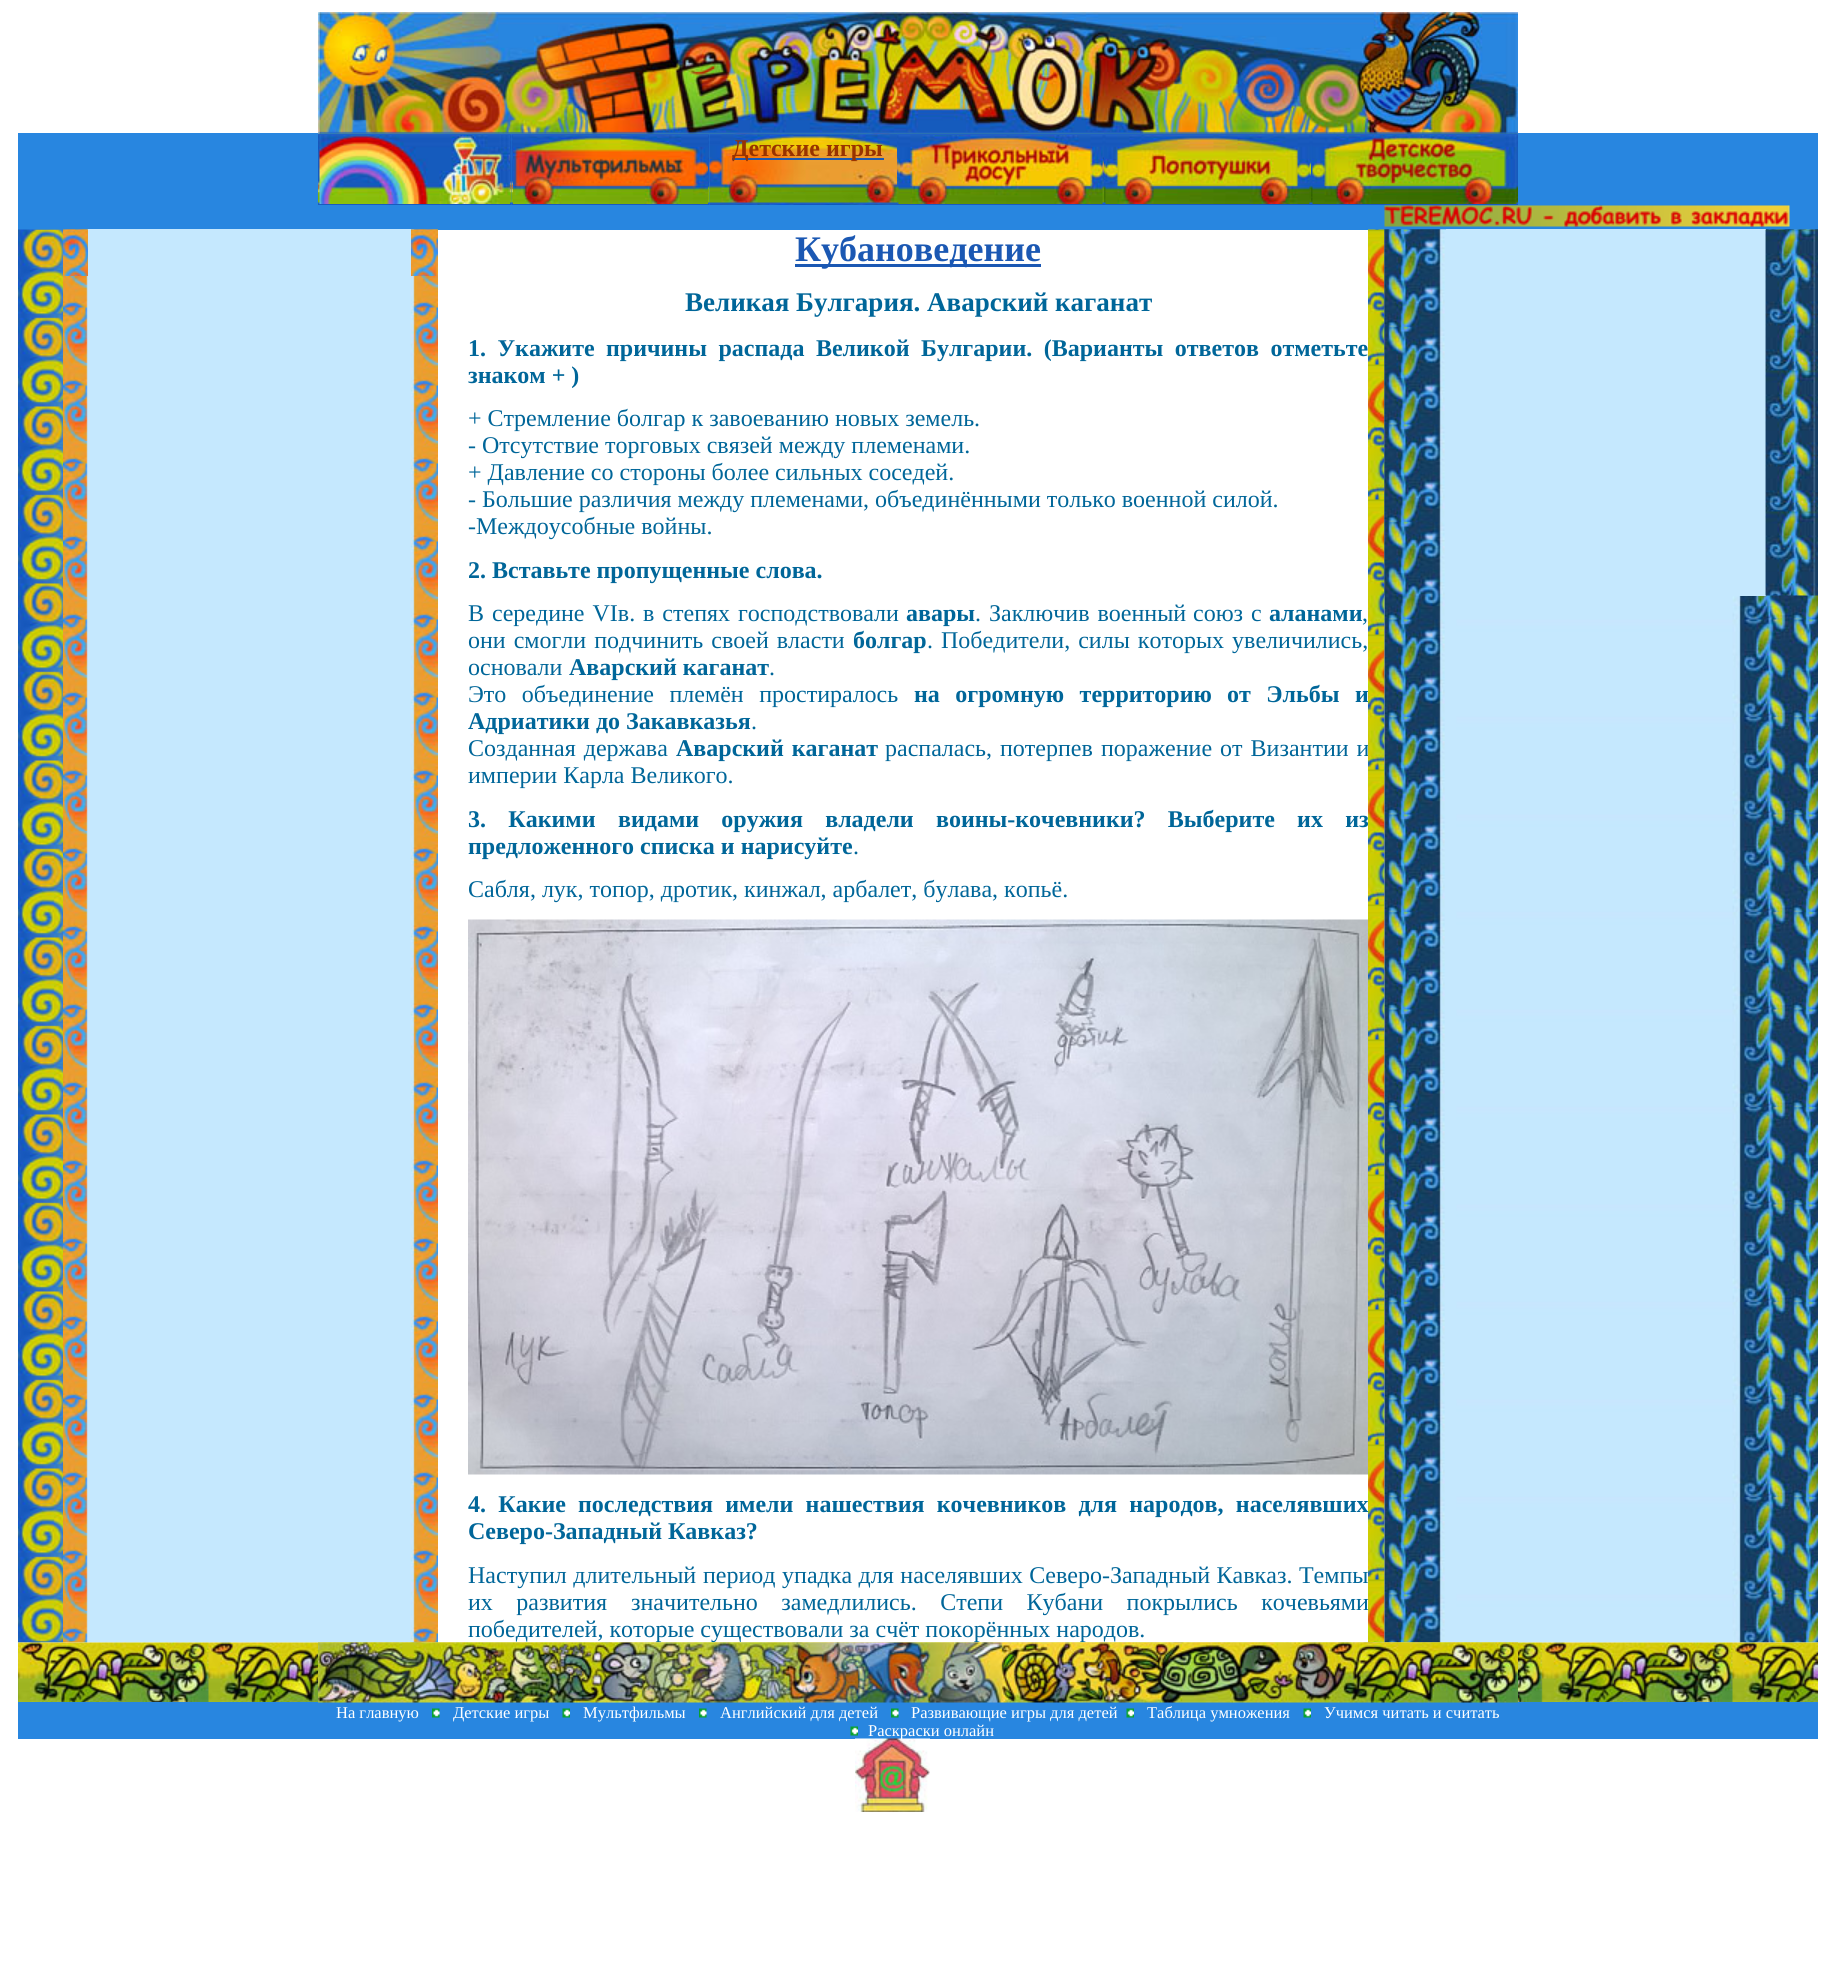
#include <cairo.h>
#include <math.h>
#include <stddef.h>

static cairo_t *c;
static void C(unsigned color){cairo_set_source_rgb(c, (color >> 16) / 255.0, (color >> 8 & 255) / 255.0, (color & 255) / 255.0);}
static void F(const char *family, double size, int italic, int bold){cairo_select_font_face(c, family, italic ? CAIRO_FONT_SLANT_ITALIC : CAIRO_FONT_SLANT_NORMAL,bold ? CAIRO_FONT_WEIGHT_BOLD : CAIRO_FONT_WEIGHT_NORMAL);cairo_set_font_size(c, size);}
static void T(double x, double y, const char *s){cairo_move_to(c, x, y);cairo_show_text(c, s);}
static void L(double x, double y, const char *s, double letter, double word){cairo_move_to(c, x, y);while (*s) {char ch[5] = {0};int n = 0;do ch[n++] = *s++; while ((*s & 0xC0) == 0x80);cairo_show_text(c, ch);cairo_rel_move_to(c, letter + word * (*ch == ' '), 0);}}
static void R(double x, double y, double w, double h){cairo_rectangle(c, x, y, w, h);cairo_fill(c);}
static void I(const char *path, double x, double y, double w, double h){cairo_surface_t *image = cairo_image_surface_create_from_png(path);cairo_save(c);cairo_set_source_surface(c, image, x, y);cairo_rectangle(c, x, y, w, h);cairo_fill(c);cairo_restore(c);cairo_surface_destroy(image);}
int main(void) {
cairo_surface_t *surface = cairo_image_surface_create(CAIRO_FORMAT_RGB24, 1835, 1961);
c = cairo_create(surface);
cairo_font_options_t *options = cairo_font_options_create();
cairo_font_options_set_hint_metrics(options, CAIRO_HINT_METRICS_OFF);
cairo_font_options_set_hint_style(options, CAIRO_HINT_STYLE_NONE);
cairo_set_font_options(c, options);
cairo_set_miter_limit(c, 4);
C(0xffffff);
cairo_paint(c);
C(0x2886e0);
R(18,133,1800,73);
I("2.png",318,133,194,72);
I("4.png",511,133,199,72);
I("6.png",709,133,188,72);
I("7.png",897,133,207,72);
I("9.png",1104,133,207,72);
I("11.png",1311,133,207,72);
I("1.png",318,12,1200,122);
I("3.png",319,135,191,69);
I("5.png",513,135,195,69);
C(0x1b58b3);
R(732,158,152,2);
F("Liberation Serif",24,0,1);
C(0x993300);
T(732,156,"Детские игры");
I("8.png",898,135,205,69);
I("10.png",1105,135,205,69);
I("12.png",1312,135,205,69);
C(0x2886e0);
R(18,206,1800,24);
I("13.png",1384,205,406,22);
I("14.png",18,229,45,1414);
I("15.png",63,229,375,1414);
I("16.png",63,229,25,47);
C(0xc5e8fe);
R(88,229,323,6);
I("17.png",411,229,27,47);
C(0x1b58b3);
R(795,264,246,3);
F("Liberation Serif",36,0,1);
T(795,261,"Кубановедение");
F("Liberation Serif",27,0,1);
C(0x006699);
T(685,311,"Великая Булгария. Аварский каганат");
F("Liberation Serif",24,0,1);
L(468,356,"1. Укажите",0,5.5);
L(606,356,"причины распада Великой Булгарии. (Варианты ответов отметьте",0,5.5);
T(468,383,"знаком + )");
F("Liberation Serif",24,0,0);
T(468,426,"+ Стремление болгар к завоеванию новых земель.");
T(468,453,"- Отсутствие торговых связей между племенами.");
T(468,480,"+ Давление со стороны более сильных соседей.");
T(468,507,"- Большие различия между племенами, объединёнными только военной силой.");
T(468,534,"-Междоусобные войны.");
F("Liberation Serif",24,0,1);
T(468,578,"2. Вставьте пропущенные слова.");
F("Liberation Serif",24,0,0);
L(468,621,"В середине VIв.",0,2);
L(643,621,"в степях господствовали",0,2);
F("Liberation Serif",24,0,1);
T(906,621,"авары");
F("Liberation Serif",24,0,0);
L(975,621,". Заключив военный",0,2);
L(1193,621,"союз с",0,2);
F("Liberation Serif",24,0,1);
T(1269,621,"аланами");
F("Liberation Serif",24,0,0);
T(1362,621,",");
L(468,648,"они смогли подчинить своей власти",0,2);
F("Liberation Serif",24,0,1);
T(853,648,"болгар");
F("Liberation Serif",24,0,0);
L(927,648,". Победители, силы которых увеличились,",0,2);
T(468,675,"основали");
F("Liberation Serif",24,0,1);
T(569,675,"Аварский каганат");
F("Liberation Serif",24,0,0);
T(769,675,".");
L(468,702,"Это объединение племён простиралось",0,9.5);
F("Liberation Serif",24,0,1);
L(914,702,"на огромную территорию",0,9.5);
L(1227,702,"от Эльбы и",0,9.5);
T(468,729,"Адриатики до Закавказья");
F("Liberation Serif",24,0,0);
T(751,729,".");
L(468,756,"Созданная держава",0,2);
F("Liberation Serif",24,0,1);
L(676,756,"Аварский каганат",0,2);
F("Liberation Serif",24,0,0);
L(885,756,"распалась, потерпев",0,2);
L(1101,756,"поражение от Византии и",0,2);
T(468,783,"империи Карла Великого.");
F("Liberation Serif",24,0,1);
L(468,827,"3. Какими",0,16.25);
L(618,827,"видами оружия владели воины-кочевники? Выберите их из",0,16.25);
T(468,854,"предложенного списка и нарисуйте");
F("Liberation Serif",24,0,0);
T(853,854,".");
T(468,897,"Сабля, лук, топор, дротик, кинжал, арбалет, булава, копьё.");
I("18.png",468,919,900,556);
F("Liberation Serif",24,0,1);
L(468,1512,"4. Какие",0,6.25);
I("19.png",1368,229,17,1414);
L(578,1512,"последствия имели нашествия кочевников для народов, населявших",0,6.25);
T(468,1539,"Северо-Западный Кавказ?");
F("Liberation Serif",24,0,0);
L(468,1583,"Наступил длительный",0,.5);
L(703,1583,"период упадка для населявших Северо-Западный Кавказ. Темпы",0,.5);
L(468,1610,"их развития",0,17.5);
L(631,1610,"значительно замедлились. Степи Кубани покрылись кочевьями",0,17.5);
I("20.png",1384,229,434,1414);
I("23.png",18,1642,1800,60);
T(468,1637,"победителей, которые существовали за счёт покорённых народов.");
I("21.png",1384,229,62,367);
C(0xc5e8fe);
R(1446,229,320,367);
I("22.png",1765,229,53,367);
C(0x2886e0);
R(18,1702,1800,37);
I("24.png",318,1642,1200,61);
F("Liberation Serif",16.5,0,0);
C(0xffffff);
T(336,1718,"На главную");
I("25.png",432,1708,8,10);
T(453,1718,"Детские игры");
I("26.png",562,1708,8,10);
T(583,1718,"Мультфильмы");
I("27.png",699,1708,8,10);
T(720,1718,"Английский для детей");
I("27.png",891,1708,8,10);
T(911,1718,"Развивающие игры для детей");
I("26.png",1126,1708,8,10);
T(1147,1718,"Таблица умножения");
I("26.png",1303,1708,8,10);
T(1324,1718,"Учимся читать и считать");
I("28.png",850,1726,8,10);
T(868,1736,"Раскраски онлайн");
I("29.png",855,1738,75,74);
cairo_surface_write_to_png(surface, "o.png");
cairo_font_options_destroy(options);
cairo_destroy(c);
cairo_surface_destroy(surface);
return 0;
}
